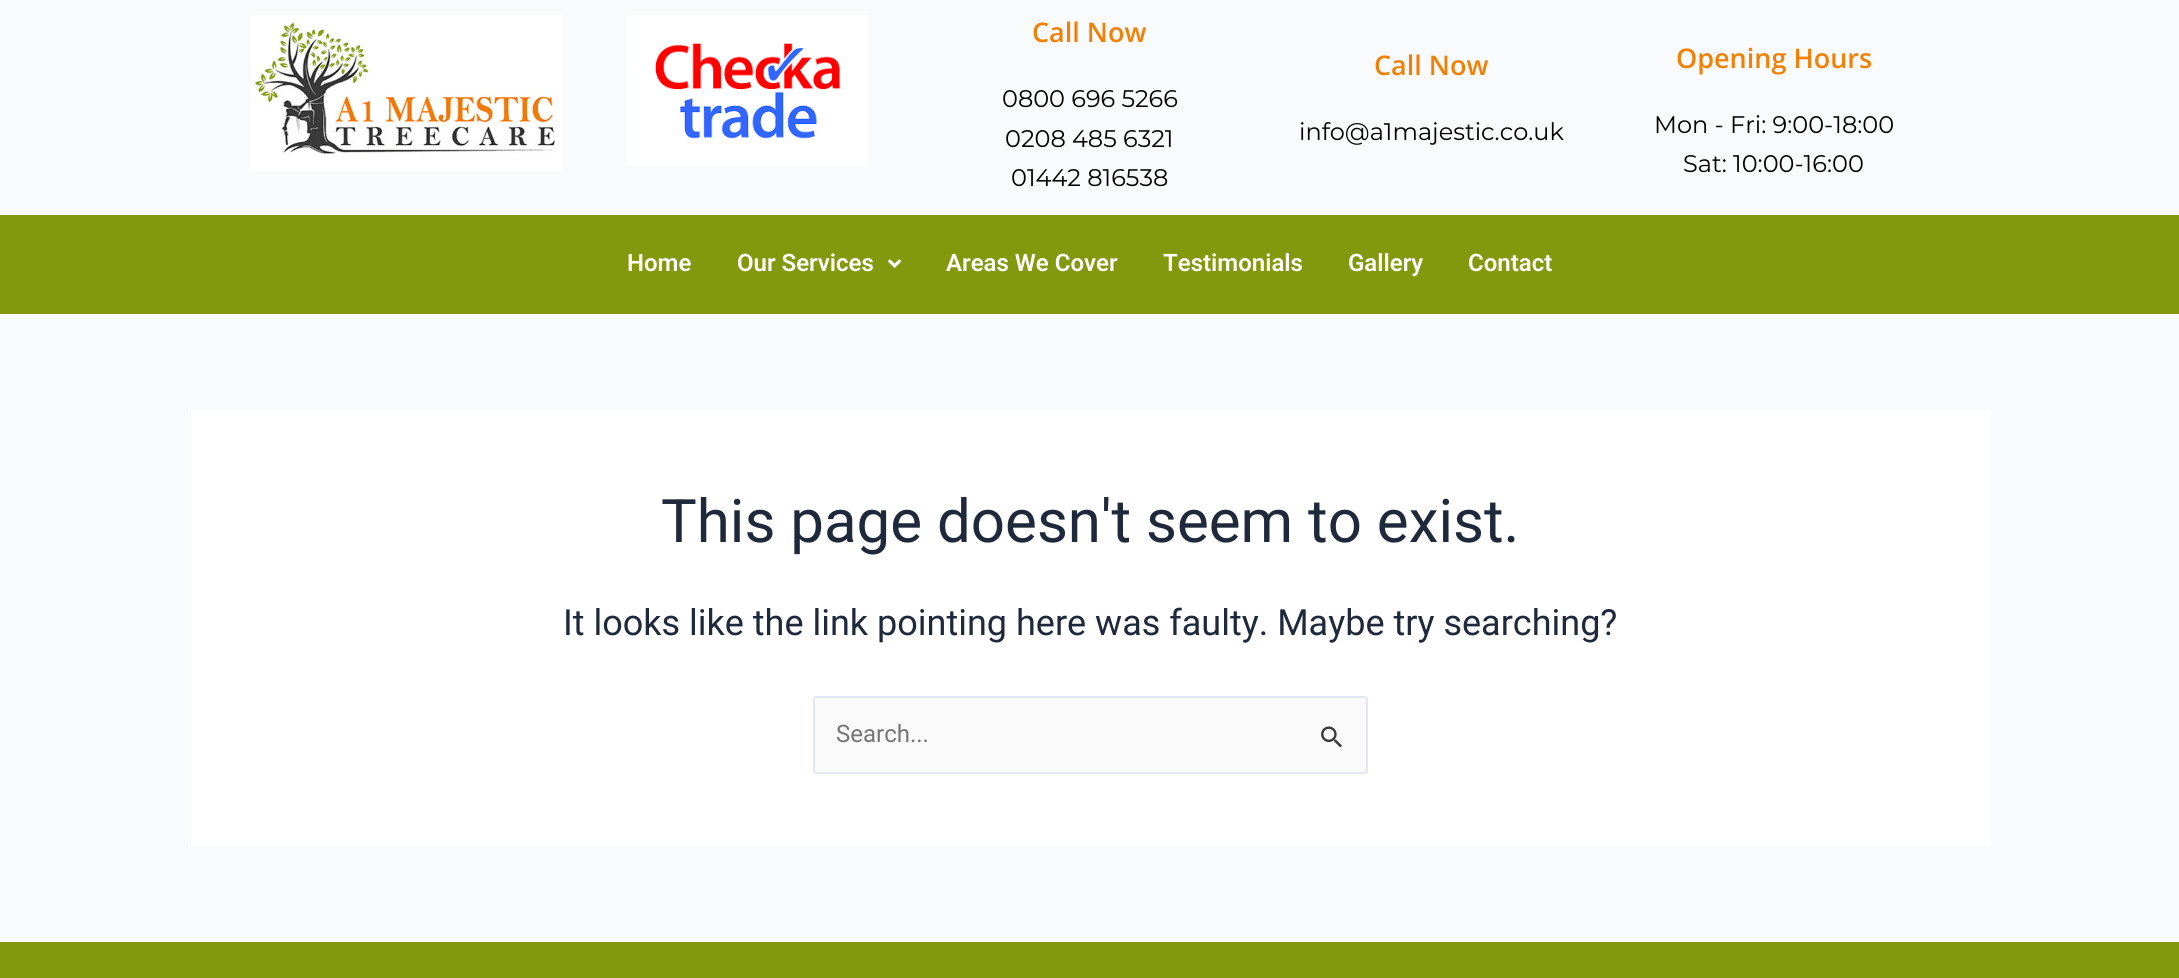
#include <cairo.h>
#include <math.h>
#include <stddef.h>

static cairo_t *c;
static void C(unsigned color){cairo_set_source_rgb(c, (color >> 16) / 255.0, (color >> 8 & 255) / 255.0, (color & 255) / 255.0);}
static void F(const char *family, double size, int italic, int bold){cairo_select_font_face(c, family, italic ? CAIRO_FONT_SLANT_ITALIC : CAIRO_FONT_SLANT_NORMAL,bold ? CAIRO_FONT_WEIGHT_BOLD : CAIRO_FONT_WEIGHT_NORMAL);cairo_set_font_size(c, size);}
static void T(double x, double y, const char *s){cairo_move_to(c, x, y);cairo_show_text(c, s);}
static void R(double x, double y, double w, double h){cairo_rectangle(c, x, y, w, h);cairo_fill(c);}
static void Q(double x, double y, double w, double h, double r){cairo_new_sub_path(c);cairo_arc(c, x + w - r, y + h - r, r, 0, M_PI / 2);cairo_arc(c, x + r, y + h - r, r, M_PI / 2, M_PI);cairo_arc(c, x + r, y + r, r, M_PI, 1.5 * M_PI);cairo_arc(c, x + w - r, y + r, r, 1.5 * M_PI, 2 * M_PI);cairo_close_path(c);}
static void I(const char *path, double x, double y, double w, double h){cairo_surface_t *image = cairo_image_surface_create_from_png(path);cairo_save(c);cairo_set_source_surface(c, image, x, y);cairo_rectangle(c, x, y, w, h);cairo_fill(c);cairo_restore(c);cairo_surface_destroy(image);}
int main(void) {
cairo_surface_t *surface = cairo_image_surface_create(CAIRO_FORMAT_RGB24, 2179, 978);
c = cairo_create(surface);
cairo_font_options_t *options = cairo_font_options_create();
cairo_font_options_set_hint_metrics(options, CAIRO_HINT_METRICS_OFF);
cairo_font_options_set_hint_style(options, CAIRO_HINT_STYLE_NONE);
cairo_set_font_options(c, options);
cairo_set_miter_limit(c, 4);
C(0xf9fafb);
cairo_paint(c);
I("1.png",251,15,311,156);
I("2.png",627,15,241,151);
F("Open Sans SemiBold",27,0,0);
C(0xf28004);
T(1032,42,"Call Now");
F("Montserrat",24,0,0);
C(0x000000);
T(1002,107,"0800 696 5266");
T(1005,147,"0208 485 6321");
T(1011,186,"01442 816538");
F("Open Sans SemiBold",27,0,0);
C(0xf28004);
T(1374,75,"Call Now");
F("Montserrat",24,0,0);
C(0x000000);
T(1299,140,"info@a1majestic.co.uk");
F("Open Sans SemiBold",27,0,0);
C(0xf28004);
T(1676,68,"Opening Hours");
F("Montserrat",24,0,0);
C(0x000000);
T(1654,133,"Mon - Fri: 9:00-18:00");
T(1683,172,"Sat: 10:00-16:00");
C(0x82990d);
R(0,215,2179,99);
F("Roboto SemiBold",24,0,0);
C(0xffffff);
T(627,271,"Home");
T(737,271,"Our Services");
I("3.png",888,259,14,9);
T(946,271,"Areas We Cover");
T(1163,271,"Testimonials");
T(1348,271,"Gallery");
T(1468,271,"Contact");
R(191,410,1800,436);
F("Roboto",60,0,0);
C(0x1e293b);
T(661,542,"This page doesn't seem to exist.");
F("Roboto",36,0,0);
T(563,635,"It looks like the link pointing here was faulty. Maybe try searching?");
C(0xfafafa);
Q(814,697,553,76,2);
cairo_fill_preserve(c);
C(0xe2e8f0);
cairo_stroke(c);
F("Roboto",24,0,0);
C(0x757575);
T(836,742,"Search...");
I("4.png",1321,726,21,22);
C(0x82990d);
R(0,942,2179,36);
cairo_surface_write_to_png(surface, "o.png");
cairo_font_options_destroy(options);
cairo_destroy(c);
cairo_surface_destroy(surface);
return 0;
}
